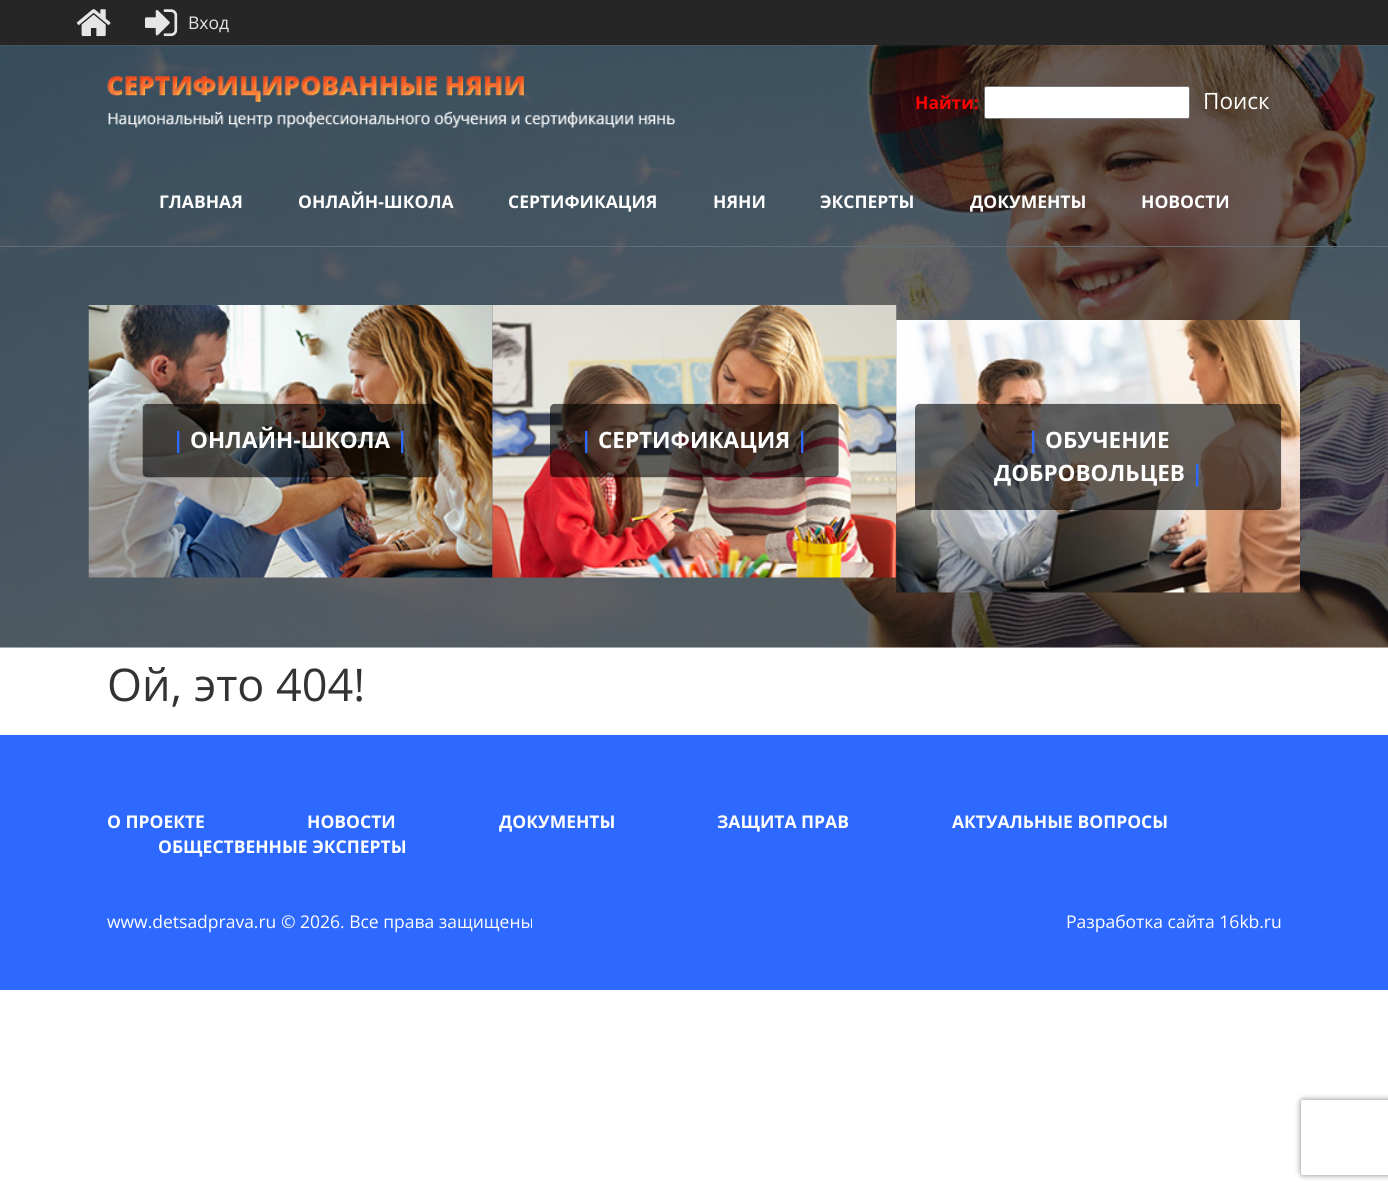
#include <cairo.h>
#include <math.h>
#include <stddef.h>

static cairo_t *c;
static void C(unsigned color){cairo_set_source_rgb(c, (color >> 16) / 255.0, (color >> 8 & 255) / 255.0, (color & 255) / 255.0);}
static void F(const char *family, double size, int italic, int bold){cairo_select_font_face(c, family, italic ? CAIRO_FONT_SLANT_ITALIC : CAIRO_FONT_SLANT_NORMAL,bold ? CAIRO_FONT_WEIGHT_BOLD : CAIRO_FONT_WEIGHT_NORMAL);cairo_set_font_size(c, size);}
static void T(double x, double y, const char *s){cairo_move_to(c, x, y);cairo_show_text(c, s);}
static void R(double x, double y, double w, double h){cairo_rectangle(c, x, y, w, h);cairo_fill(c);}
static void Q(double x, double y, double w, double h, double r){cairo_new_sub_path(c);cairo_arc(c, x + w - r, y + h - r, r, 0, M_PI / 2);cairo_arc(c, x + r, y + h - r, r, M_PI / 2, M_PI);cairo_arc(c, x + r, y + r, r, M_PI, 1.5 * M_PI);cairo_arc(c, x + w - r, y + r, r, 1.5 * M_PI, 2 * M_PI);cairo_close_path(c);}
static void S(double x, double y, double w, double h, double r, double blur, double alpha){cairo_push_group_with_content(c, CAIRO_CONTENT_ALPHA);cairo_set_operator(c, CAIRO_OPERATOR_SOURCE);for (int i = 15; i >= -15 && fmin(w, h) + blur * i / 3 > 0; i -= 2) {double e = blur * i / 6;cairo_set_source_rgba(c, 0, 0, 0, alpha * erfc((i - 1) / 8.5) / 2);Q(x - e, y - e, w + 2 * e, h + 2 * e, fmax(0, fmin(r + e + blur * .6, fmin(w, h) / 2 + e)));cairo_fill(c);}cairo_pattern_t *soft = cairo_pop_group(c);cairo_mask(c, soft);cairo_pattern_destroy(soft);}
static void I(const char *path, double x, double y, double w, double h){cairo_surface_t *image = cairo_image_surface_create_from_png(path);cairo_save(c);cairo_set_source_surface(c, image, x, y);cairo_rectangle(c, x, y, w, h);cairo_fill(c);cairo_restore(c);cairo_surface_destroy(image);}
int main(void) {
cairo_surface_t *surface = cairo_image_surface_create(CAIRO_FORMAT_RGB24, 1388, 1192);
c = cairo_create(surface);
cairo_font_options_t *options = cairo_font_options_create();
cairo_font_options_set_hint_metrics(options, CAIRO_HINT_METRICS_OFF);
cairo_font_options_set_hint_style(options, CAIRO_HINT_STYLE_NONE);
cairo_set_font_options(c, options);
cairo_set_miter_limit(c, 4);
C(0xffffff);
cairo_paint(c);
C(0x262626);
R(0,0,1388,45);
I("1.png",76,9,35,28);
I("2.png",145,9,33,28);
F("Open Sans",17.5,0,0);
C(0xe6e6e6);
T(188,29,"Вход");
C(0xf5f5f5);
R(0,647,1388,1);
I("3.png",0,45,1388,603);
I("4.png",107,76,568,52);
F("Open Sans",17.5,0,1);
C(0xff0000);
T(915,109,"Найти:");
C(0xffffff);
Q(984.5,86.5,205,32,2);
cairo_fill_preserve(c);
C(0x767676);
cairo_set_line_width(c,1);
cairo_stroke(c);
F("Open Sans",22.5,0,0);
C(0xffffff);
T(1203,109,"Поиск");
F("Open Sans",17.5,0,1);
T(159,208,"ГЛАВНАЯ");
T(298,208,"ОНЛАЙН-ШКОЛА");
T(508,208,"СЕРТИФИКАЦИЯ");
T(713,208,"НЯНИ");
T(820,208,"ЭКСПЕРТЫ");
T(970,208,"ДОКУМЕНТЫ");
T(1141,208,"НОВОСТИ");
C(0x606e79);
R(0,246,1388,1);
I("5.png",88,305,405,273);
I("6.png",142,403,297,75);
F("Open Sans",22.5,0,1);
C(0x2e69ff);
T(172,448,"|");
C(0xffffff);
T(190,448,"ОНЛАЙН-ШКОЛА");
C(0x2e69ff);
T(396,448,"|");
I("7.png",492,305,405,273);
I("8.png",550,403,289,75);
T(580,448,"|");
C(0xffffff);
T(598,448,"СЕРТИФИКАЦИЯ");
C(0x2e69ff);
T(796,448,"|");
I("9.png",896,320,404,273);
I("10.png",915,403,367,107);
T(1027,448,"|");
C(0xffffff);
T(1045,448,"ОБУЧЕНИЕ");
T(994,481,"ДОБРОВОЛЬЦЕВ");
C(0x2e69ff);
T(1191,481,"|");
F("Open Sans",45,0,0);
C(0x333333);
T(107,701,"Ой, это 404!");
C(0x2e69ff);
R(0,735,1388,255);
F("Open Sans",17.5,0,1);
C(0xffffff);
T(107,828,"О ПРОЕКТЕ");
T(307,828,"НОВОСТИ");
T(499,828,"ДОКУМЕНТЫ");
T(717,828,"ЗАЩИТА ПРАВ");
T(952,828,"АКТУАЛЬНЫЕ ВОПРОСЫ");
T(158,853,"ОБЩЕСТВЕННЫЕ ЭКСПЕРТЫ");
F("Open Sans",17.5,0,0);
T(107,928,"www.detsadprava.ru © 2026. Все права защищены");
T(1066,928,"Разработка сайта 16kb.ru");
cairo_save(c);
cairo_set_fill_rule(c,CAIRO_FILL_RULE_EVEN_ODD);
cairo_new_path(c);
cairo_move_to(c,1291,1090);
cairo_line_to(c,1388,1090);
cairo_line_to(c,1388,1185);
cairo_line_to(c,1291,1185);
cairo_close_path(c);
cairo_move_to(c,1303.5,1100);
cairo_line_to(c,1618.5,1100);
cairo_curve_to(c,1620,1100,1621,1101,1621,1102.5);
cairo_line_to(c,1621,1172.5);
cairo_curve_to(c,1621,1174,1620,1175,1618.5,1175);
cairo_line_to(c,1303.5,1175);
cairo_curve_to(c,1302,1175,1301,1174,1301,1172.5);
cairo_line_to(c,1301,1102.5);
cairo_curve_to(c,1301,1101,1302,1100,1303.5,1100);
cairo_close_path(c);
cairo_clip(c);
C(0x808080);
S(1301,1100,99,75,2.5,3,1);
cairo_restore(c);
cairo_surface_write_to_png(surface, "o.png");
cairo_font_options_destroy(options);
cairo_destroy(c);
cairo_surface_destroy(surface);
return 0;
}
